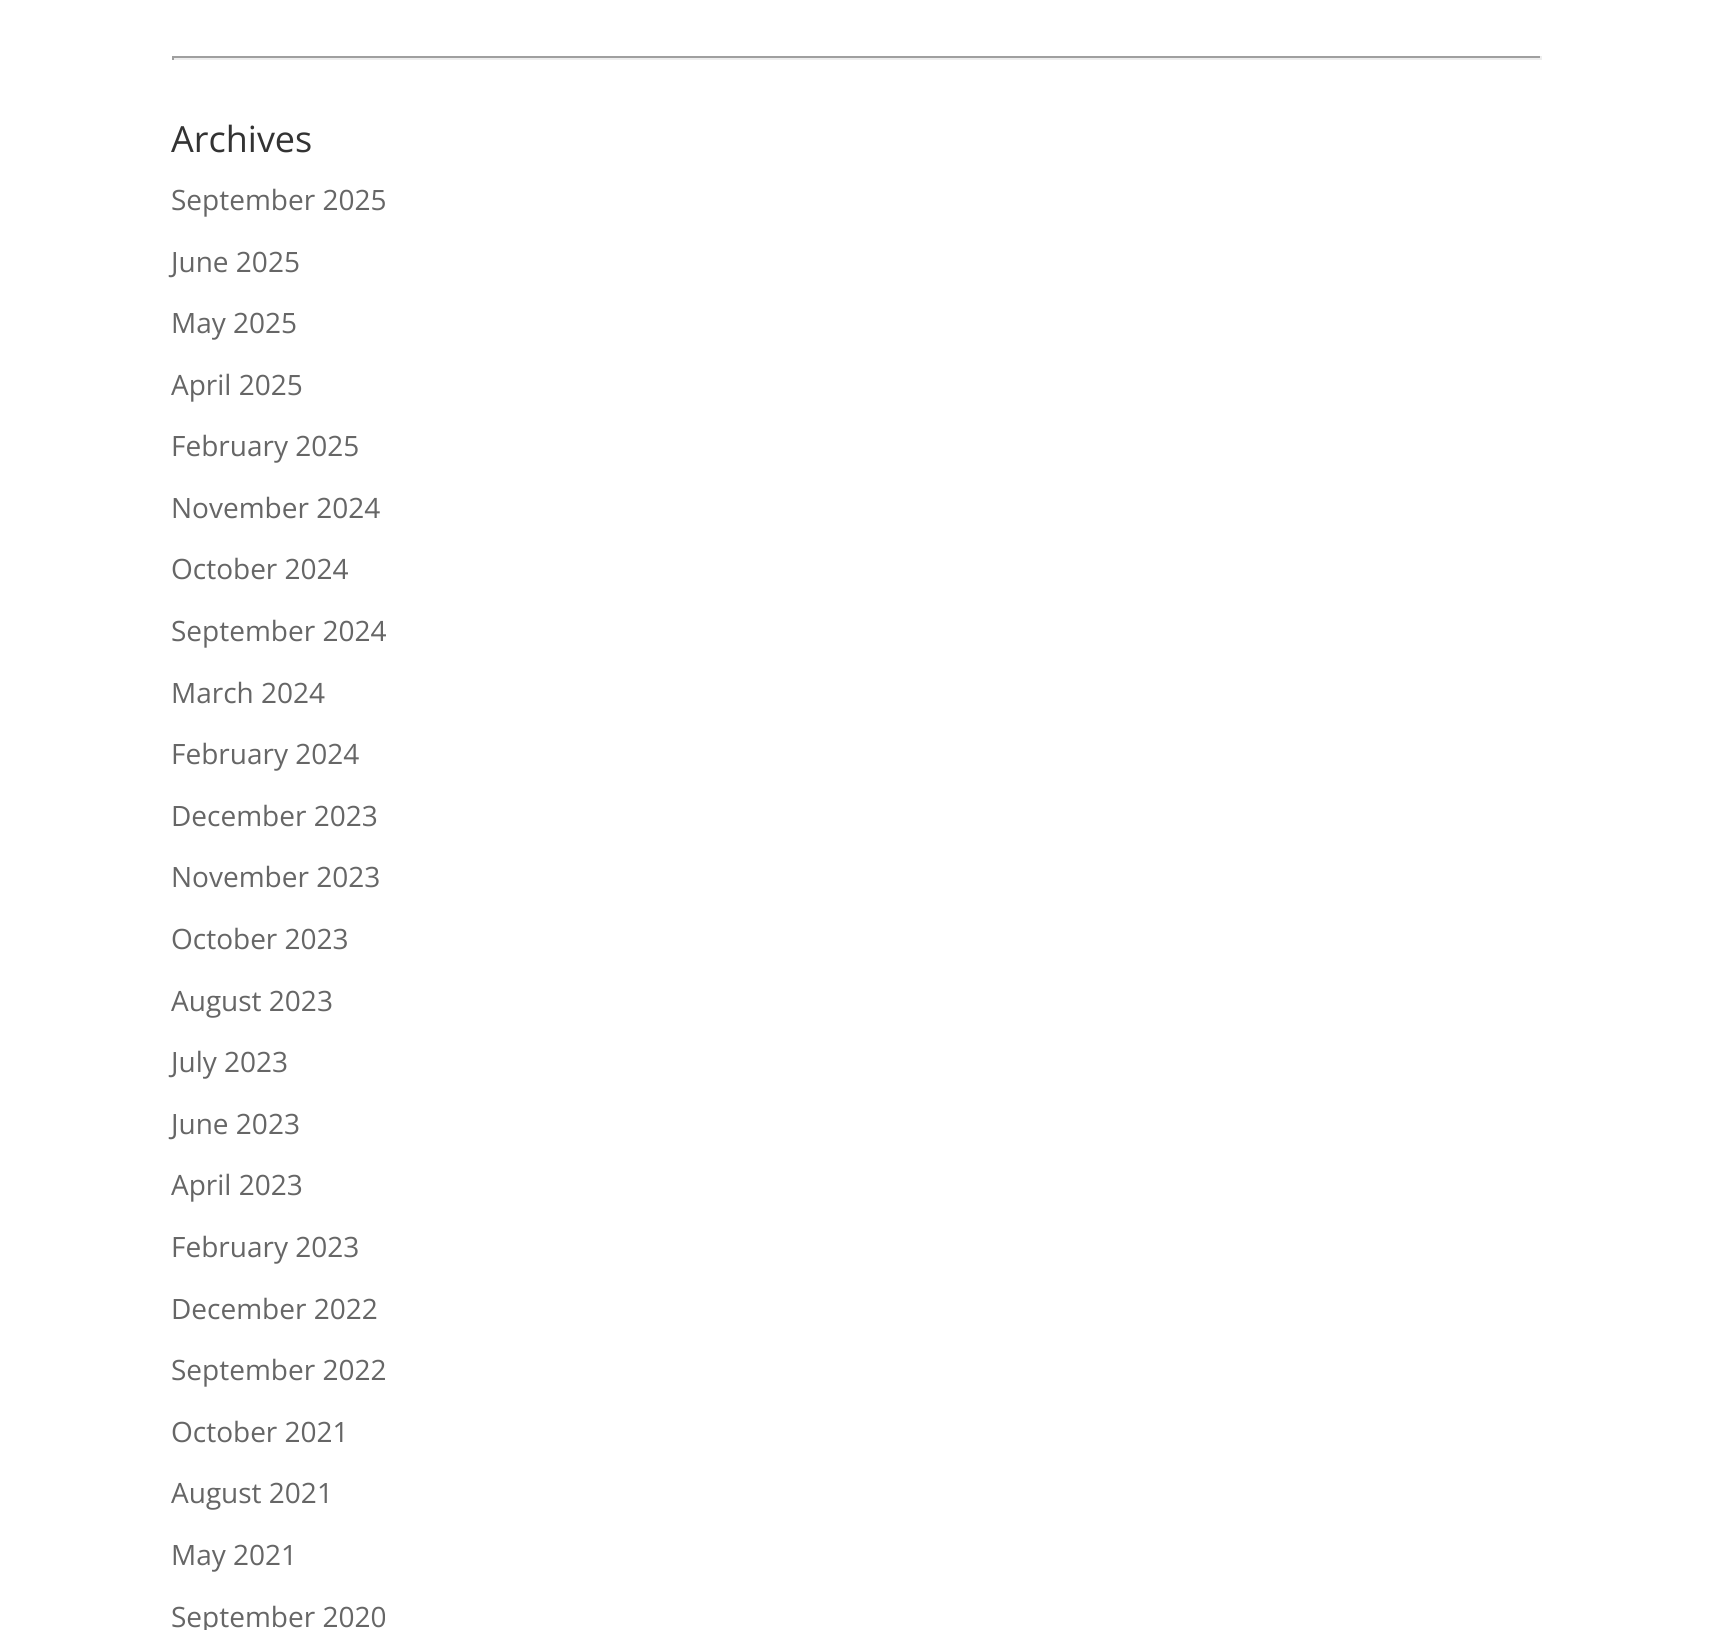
#include <cairo.h>
#include <math.h>
#include <stddef.h>

static cairo_t *c;
static void C(unsigned color){cairo_set_source_rgb(c, (color >> 16) / 255.0, (color >> 8 & 255) / 255.0, (color & 255) / 255.0);}
static void F(const char *family, double size, int italic, int bold){cairo_select_font_face(c, family, italic ? CAIRO_FONT_SLANT_ITALIC : CAIRO_FONT_SLANT_NORMAL,bold ? CAIRO_FONT_WEIGHT_BOLD : CAIRO_FONT_WEIGHT_NORMAL);cairo_set_font_size(c, size);}
static void T(double x, double y, const char *s){cairo_move_to(c, x, y);cairo_show_text(c, s);}
static void R(double x, double y, double w, double h){cairo_rectangle(c, x, y, w, h);cairo_fill(c);}
int main(void) {
cairo_surface_t *surface = cairo_image_surface_create(CAIRO_FORMAT_RGB24, 1714, 1630);
c = cairo_create(surface);
cairo_font_options_t *options = cairo_font_options_create();
cairo_font_options_set_hint_metrics(options, CAIRO_HINT_METRICS_OFF);
cairo_font_options_set_hint_style(options, CAIRO_HINT_STYLE_NONE);
cairo_set_font_options(c, options);
cairo_set_miter_limit(c, 4);
C(0xffffff);
cairo_paint(c);
C(0x9f9f9f);
R(172,56,1370,2);
C(0xeeeeee);
R(1540,56,2,4);
R(172,58,1370,2);
C(0x9f9f9f);
R(172,56,2,4);
F("Open Sans",36,0,0);
C(0x333333);
T(171,152,"Archives");
F("Open Sans",28,0,0);
C(0x666666);
T(171,210,"September 2025");
T(171,272,"June 2025");
T(171,333,"May 2025");
T(171,395,"April 2025");
T(171,456,"February 2025");
T(171,518,"November 2024");
T(171,579,"October 2024");
T(171,641,"September 2024");
T(171,703,"March 2024");
T(171,764,"February 2024");
T(171,826,"December 2023");
T(171,887,"November 2023");
T(171,949,"October 2023");
T(171,1011,"August 2023");
T(171,1072,"July 2023");
T(171,1134,"June 2023");
T(171,1195,"April 2023");
T(171,1257,"February 2023");
T(171,1319,"December 2022");
T(171,1380,"September 2022");
T(171,1442,"October 2021");
T(171,1503,"August 2021");
T(171,1565,"May 2021");
T(171,1627,"September 2020");
cairo_surface_write_to_png(surface, "o.png");
cairo_font_options_destroy(options);
cairo_destroy(c);
cairo_surface_destroy(surface);
return 0;
}
